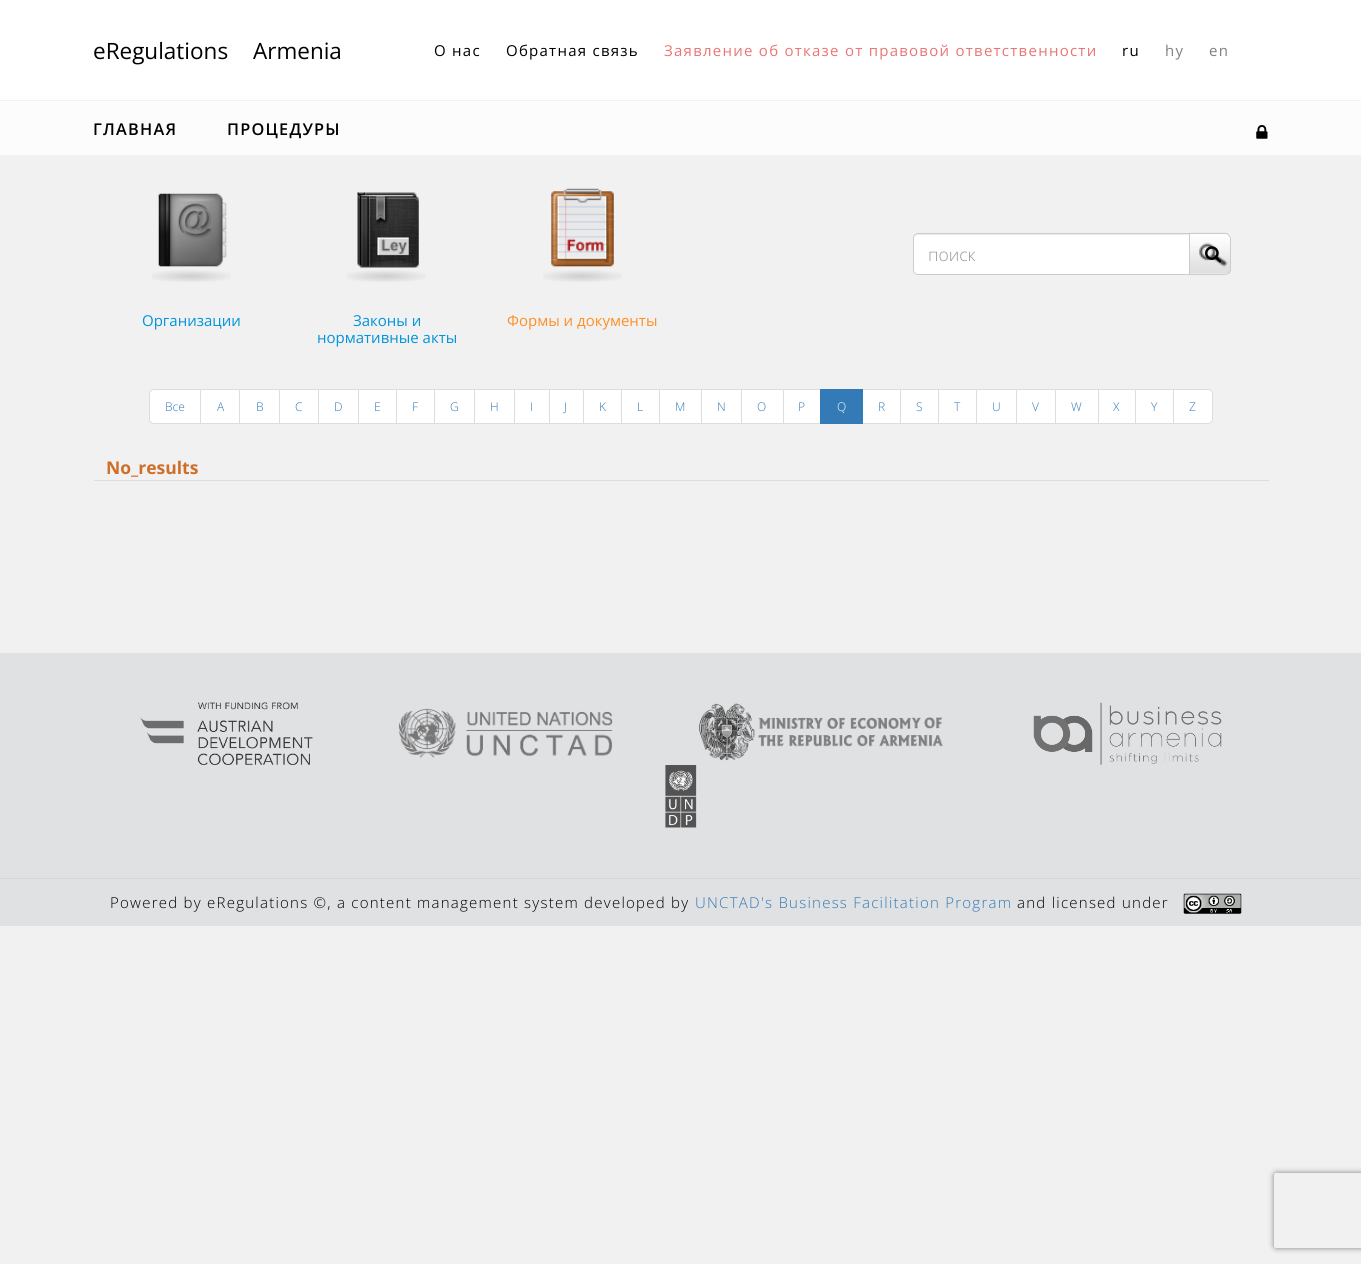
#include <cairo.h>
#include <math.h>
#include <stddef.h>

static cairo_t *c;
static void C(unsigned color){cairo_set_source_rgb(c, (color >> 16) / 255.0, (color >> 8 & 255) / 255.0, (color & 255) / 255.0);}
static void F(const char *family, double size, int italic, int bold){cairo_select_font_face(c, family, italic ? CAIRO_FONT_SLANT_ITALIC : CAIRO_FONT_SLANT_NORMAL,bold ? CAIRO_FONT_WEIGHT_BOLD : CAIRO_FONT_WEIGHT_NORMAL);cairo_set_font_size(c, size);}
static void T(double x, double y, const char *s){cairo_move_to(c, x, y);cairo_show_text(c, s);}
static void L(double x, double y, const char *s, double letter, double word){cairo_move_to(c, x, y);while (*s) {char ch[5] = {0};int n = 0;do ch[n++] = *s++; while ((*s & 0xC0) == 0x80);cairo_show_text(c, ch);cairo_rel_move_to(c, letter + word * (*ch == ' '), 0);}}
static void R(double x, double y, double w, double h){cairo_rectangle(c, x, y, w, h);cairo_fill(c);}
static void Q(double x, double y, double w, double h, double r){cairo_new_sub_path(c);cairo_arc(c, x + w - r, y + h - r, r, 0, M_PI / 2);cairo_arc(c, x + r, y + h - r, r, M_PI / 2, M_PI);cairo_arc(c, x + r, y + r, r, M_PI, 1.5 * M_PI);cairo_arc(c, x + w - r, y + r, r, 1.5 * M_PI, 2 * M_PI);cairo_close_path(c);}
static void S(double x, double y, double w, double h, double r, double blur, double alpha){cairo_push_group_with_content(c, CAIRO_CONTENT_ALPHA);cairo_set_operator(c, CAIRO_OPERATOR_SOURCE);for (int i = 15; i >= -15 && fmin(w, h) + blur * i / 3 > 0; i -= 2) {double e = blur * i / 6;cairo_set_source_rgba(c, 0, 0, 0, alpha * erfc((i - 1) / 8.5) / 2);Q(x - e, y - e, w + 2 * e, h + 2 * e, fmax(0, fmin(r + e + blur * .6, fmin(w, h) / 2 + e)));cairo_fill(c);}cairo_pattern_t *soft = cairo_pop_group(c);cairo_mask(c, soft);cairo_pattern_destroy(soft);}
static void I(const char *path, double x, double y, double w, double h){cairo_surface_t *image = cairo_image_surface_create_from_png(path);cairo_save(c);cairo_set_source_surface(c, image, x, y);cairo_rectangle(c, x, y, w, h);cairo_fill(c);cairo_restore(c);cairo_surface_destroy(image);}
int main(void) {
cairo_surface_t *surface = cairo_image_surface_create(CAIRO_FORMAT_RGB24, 1361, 1264);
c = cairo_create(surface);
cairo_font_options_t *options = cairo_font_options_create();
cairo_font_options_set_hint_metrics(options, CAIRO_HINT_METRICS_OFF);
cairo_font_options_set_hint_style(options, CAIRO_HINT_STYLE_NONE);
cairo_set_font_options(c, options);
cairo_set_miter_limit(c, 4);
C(0xf1f1f1);
cairo_paint(c);
C(0xffffff);
R(0,0,1361,100);
F("Open Sans",22.5,0,0);
C(0x000000);
T(93,59,"eRegulations");
T(253,59,"Armenia");
F("Open Sans",15,0,0);
L(434,56,"О нас",1.25,0);
L(506,56,"Обратная связь",1.25,0);
C(0xea7575);
L(664,56,"Заявление об отказе от правовой ответственности",1.25,0);
C(0x000000);
L(1122,56,"ru",1.25,0);
C(0x808080);
L(1165,56,"hy",1.25,0);
L(1209,56,"en",1.25,0);
C(0xfcfcfc);
R(0,101,1361,54);
F("Open Sans SemiBold",16.25,0,0);
C(0x000000);
L(93,135,"ГЛАВНАЯ",1.25,0);
L(227,135,"ПРОЦЕДУРЫ",1.25,0);
I("1.png",1256,125,12,14);
C(0xffffff);
cairo_new_path(c);
cairo_move_to(c,918,233);
cairo_line_to(c,1190,233);
cairo_line_to(c,1190,275);
cairo_line_to(c,918,275);
cairo_curve_to(c,915,275,913,273,913,270);
cairo_line_to(c,913,238);
cairo_curve_to(c,913,235,915,233,918,233);
cairo_close_path(c);
cairo_fill(c);
C(0xececec);
cairo_new_path(c);
cairo_move_to(c,918,235);
cairo_line_to(c,1189,235);
cairo_line_to(c,1189,234);
cairo_line_to(c,918,234);
cairo_curve_to(c,915,234,914,236,914,239);
cairo_curve_to(c,914,237,915,235,918,235);
cairo_close_path(c);
cairo_fill(c);
cairo_new_path(c);
cairo_move_to(c,918,233.5);
cairo_line_to(c,1189.5,233.5);
cairo_line_to(c,1189.5,274.5);
cairo_line_to(c,918,274.5);
cairo_curve_to(c,915.5,274.5,913.5,272.5,913.5,270);
cairo_line_to(c,913.5,238);
cairo_curve_to(c,913.5,235.5,915.5,233.5,918,233.5);
cairo_close_path(c);
C(0xcccccc);
cairo_set_line_width(c,1);
cairo_stroke(c);
F("Open Sans Light",17.5,0,0);
C(0x999999);
T(928,261,"поиск");
I("2.png",1189,232,42,43);
cairo_new_path(c);
cairo_move_to(c,1189.5,233.5);
cairo_line_to(c,1225,233.5);
cairo_curve_to(c,1228,233.5,1230.5,236,1230.5,239);
cairo_line_to(c,1230.5,269);
cairo_curve_to(c,1230.5,272,1228,274.5,1225,274.5);
cairo_line_to(c,1189.5,274.5);
cairo_close_path(c);
C(0xcccccc);
cairo_stroke(c);
I("3.png",1205,246,17,17);
I("4.png",152,193,79,89);
F("Open Sans",15,0,0);
C(0x0194da);
T(142,326,"Организации");
I("5.png",347,192,79,90);
T(353,326,"Законы и");
T(317,343,"нормативные акты");
I("6.png",543,188,79,94);
C(0xff8f27);
T(507,326,"Формы и документы");
C(0xffffff);
cairo_new_path(c);
cairo_move_to(c,154,389.5);
cairo_line_to(c,200.5,389.5);
cairo_line_to(c,200.5,423.5);
cairo_line_to(c,154,423.5);
cairo_curve_to(c,151.5,423.5,149.5,421.5,149.5,419);
cairo_line_to(c,149.5,394);
cairo_curve_to(c,149.5,391.5,151.5,389.5,154,389.5);
cairo_close_path(c);
cairo_fill_preserve(c);
C(0xdddddd);
cairo_stroke(c);
F("Open Sans Light",12,0,0);
C(0x337ab7);
T(165,411,"Все");
C(0xffffff);
cairo_rectangle(c,200.5,389.5,39,34);
cairo_fill_preserve(c);
C(0xdddddd);
cairo_stroke(c);
C(0x337ab7);
T(217,411,"A");
C(0xffffff);
cairo_rectangle(c,239.5,389.5,40,34);
cairo_fill_preserve(c);
C(0xdddddd);
cairo_stroke(c);
C(0x337ab7);
T(256,411,"B");
C(0xffffff);
cairo_rectangle(c,279.5,389.5,39,34);
cairo_fill_preserve(c);
C(0xdddddd);
cairo_stroke(c);
C(0x337ab7);
T(295,411,"C");
C(0xffffff);
cairo_rectangle(c,318.5,389.5,40,34);
cairo_fill_preserve(c);
C(0xdddddd);
cairo_stroke(c);
C(0x337ab7);
T(334,411,"D");
C(0xffffff);
R(359,390,37,33);
cairo_rectangle(c,358.5,389.5,39,34);
C(0xdddddd);
cairo_stroke(c);
C(0x337ab7);
T(374,411,"E");
C(0xffffff);
cairo_rectangle(c,396.5,389.5,38,34);
cairo_fill_preserve(c);
C(0xdddddd);
cairo_stroke(c);
C(0x337ab7);
T(412,411,"F");
C(0xffffff);
cairo_rectangle(c,434.5,389.5,40,34);
cairo_fill_preserve(c);
C(0xdddddd);
cairo_stroke(c);
C(0x337ab7);
T(450,411,"G");
C(0xffffff);
cairo_rectangle(c,474.5,389.5,40,34);
cairo_fill_preserve(c);
C(0xdddddd);
cairo_stroke(c);
C(0x337ab7);
T(490,411,"H");
C(0xffffff);
cairo_rectangle(c,514.5,389.5,35,34);
cairo_fill_preserve(c);
C(0xdddddd);
cairo_stroke(c);
C(0x337ab7);
T(530,411,"I");
C(0xffffff);
cairo_rectangle(c,549.5,389.5,34,34);
cairo_fill_preserve(c);
C(0xdddddd);
cairo_stroke(c);
C(0x337ab7);
T(564,411,"J");
C(0xffffff);
R(584,390,37,33);
cairo_rectangle(c,583.5,389.5,39,34);
C(0xdddddd);
cairo_stroke(c);
C(0x337ab7);
T(599,411,"K");
C(0xffffff);
cairo_rectangle(c,621.5,389.5,38,34);
cairo_fill_preserve(c);
C(0xdddddd);
cairo_stroke(c);
C(0x337ab7);
T(637,411,"L");
C(0xffffff);
R(660,390,41,33);
cairo_rectangle(c,659.5,389.5,43,34);
C(0xdddddd);
cairo_stroke(c);
C(0x337ab7);
T(675,411,"M");
C(0xffffff);
R(702,390,39,33);
cairo_rectangle(c,701.5,389.5,41,34);
C(0xdddddd);
cairo_stroke(c);
C(0x337ab7);
T(717,411,"N");
C(0xffffff);
cairo_rectangle(c,741.5,389.5,42,34);
cairo_fill_preserve(c);
C(0xdddddd);
cairo_stroke(c);
C(0x337ab7);
T(757,411,"O");
C(0xffffff);
cairo_rectangle(c,783.5,389.5,37,34);
cairo_fill_preserve(c);
C(0xdddddd);
cairo_stroke(c);
C(0x337ab7);
T(798,411,"P");
C(0xffffff);
R(863,390,37,33);
cairo_rectangle(c,861.5,389.5,39,34);
C(0xdddddd);
cairo_stroke(c);
C(0x337ab7);
R(820,389,43,35);
C(0xffffff);
T(837,411,"Q");
C(0x337ab7);
T(878,411,"R");
C(0xffffff);
cairo_rectangle(c,900.5,389.5,38,34);
cairo_fill_preserve(c);
C(0xdddddd);
cairo_stroke(c);
C(0x337ab7);
T(916,411,"S");
C(0xffffff);
R(939,390,37,33);
cairo_rectangle(c,938.5,389.5,39,34);
C(0xdddddd);
cairo_stroke(c);
C(0x337ab7);
T(954,411,"T");
C(0xffffff);
R(977,390,39,33);
cairo_rectangle(c,976.5,389.5,41,34);
C(0xdddddd);
cairo_stroke(c);
C(0x337ab7);
T(992,411,"U");
C(0xffffff);
cairo_rectangle(c,1016.5,389.5,39,34);
cairo_fill_preserve(c);
C(0xdddddd);
cairo_stroke(c);
C(0x337ab7);
T(1032,411,"V");
C(0xffffff);
cairo_rectangle(c,1055.5,389.5,43,34);
cairo_fill_preserve(c);
C(0xdddddd);
cairo_stroke(c);
C(0x337ab7);
T(1071,411,"W");
C(0xffffff);
cairo_rectangle(c,1098.5,389.5,37,34);
cairo_fill_preserve(c);
C(0xdddddd);
cairo_stroke(c);
C(0x337ab7);
T(1113,411,"X");
C(0xffffff);
cairo_rectangle(c,1135.5,389.5,38,34);
cairo_fill_preserve(c);
C(0xdddddd);
cairo_stroke(c);
C(0x337ab7);
T(1151,411,"Y");
C(0xffffff);
cairo_new_path(c);
cairo_move_to(c,1173.5,389.5);
cairo_line_to(c,1208,389.5);
cairo_curve_to(c,1210.5,389.5,1212.5,391.5,1212.5,394);
cairo_line_to(c,1212.5,419);
cairo_curve_to(c,1212.5,421.5,1210.5,423.5,1208,423.5);
cairo_line_to(c,1173.5,423.5);
cairo_close_path(c);
cairo_fill_preserve(c);
C(0xdddddd);
cairo_stroke(c);
C(0x337ab7);
T(1189,411,"Z");
F("Open Sans",17.5,0,1);
C(0xce6e29);
T(106,474,"No_results");
C(0xdddddd);
R(94,480,1175,1);
C(0xe0e1e3);
R(0,653,1361,225);
I("7.png",140,702,173,63);
I("8.png",398,708,215,50);
I("9.png",699,703,244,58);
I("10.png",1033,702,189,63);
I("11.png",665,765,32,63);
R(0,879,1361,47);
C(0xd3d7da);
R(0,878,1361,1);
F("Open Sans Light",15,0,0);
C(0x000000);
L(110,908,"Powered by eRegulations ©, a content management system developed by",1.25,0);
C(0x337ab7);
L(695,908,"UNCTAD's Business Facilitation Program",1.25,0);
C(0x000000);
L(1017,908,"and licensed under",1.25,0);
I("12.png",1183,893,59,21);
cairo_save(c);
cairo_set_fill_rule(c,CAIRO_FILL_RULE_EVEN_ODD);
cairo_new_path(c);
cairo_move_to(c,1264,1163);
cairo_line_to(c,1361,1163);
cairo_line_to(c,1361,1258);
cairo_line_to(c,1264,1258);
cairo_close_path(c);
cairo_move_to(c,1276.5,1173);
cairo_line_to(c,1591.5,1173);
cairo_curve_to(c,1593,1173,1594,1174,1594,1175.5);
cairo_line_to(c,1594,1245.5);
cairo_curve_to(c,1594,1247,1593,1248,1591.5,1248);
cairo_line_to(c,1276.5,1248);
cairo_curve_to(c,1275,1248,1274,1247,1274,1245.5);
cairo_line_to(c,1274,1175.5);
cairo_curve_to(c,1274,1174,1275,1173,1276.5,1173);
cairo_close_path(c);
cairo_clip(c);
C(0x808080);
S(1274,1173,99,75,2.5,3,1);
cairo_restore(c);
cairo_surface_write_to_png(surface, "o.png");
cairo_font_options_destroy(options);
cairo_destroy(c);
cairo_surface_destroy(surface);
return 0;
}
